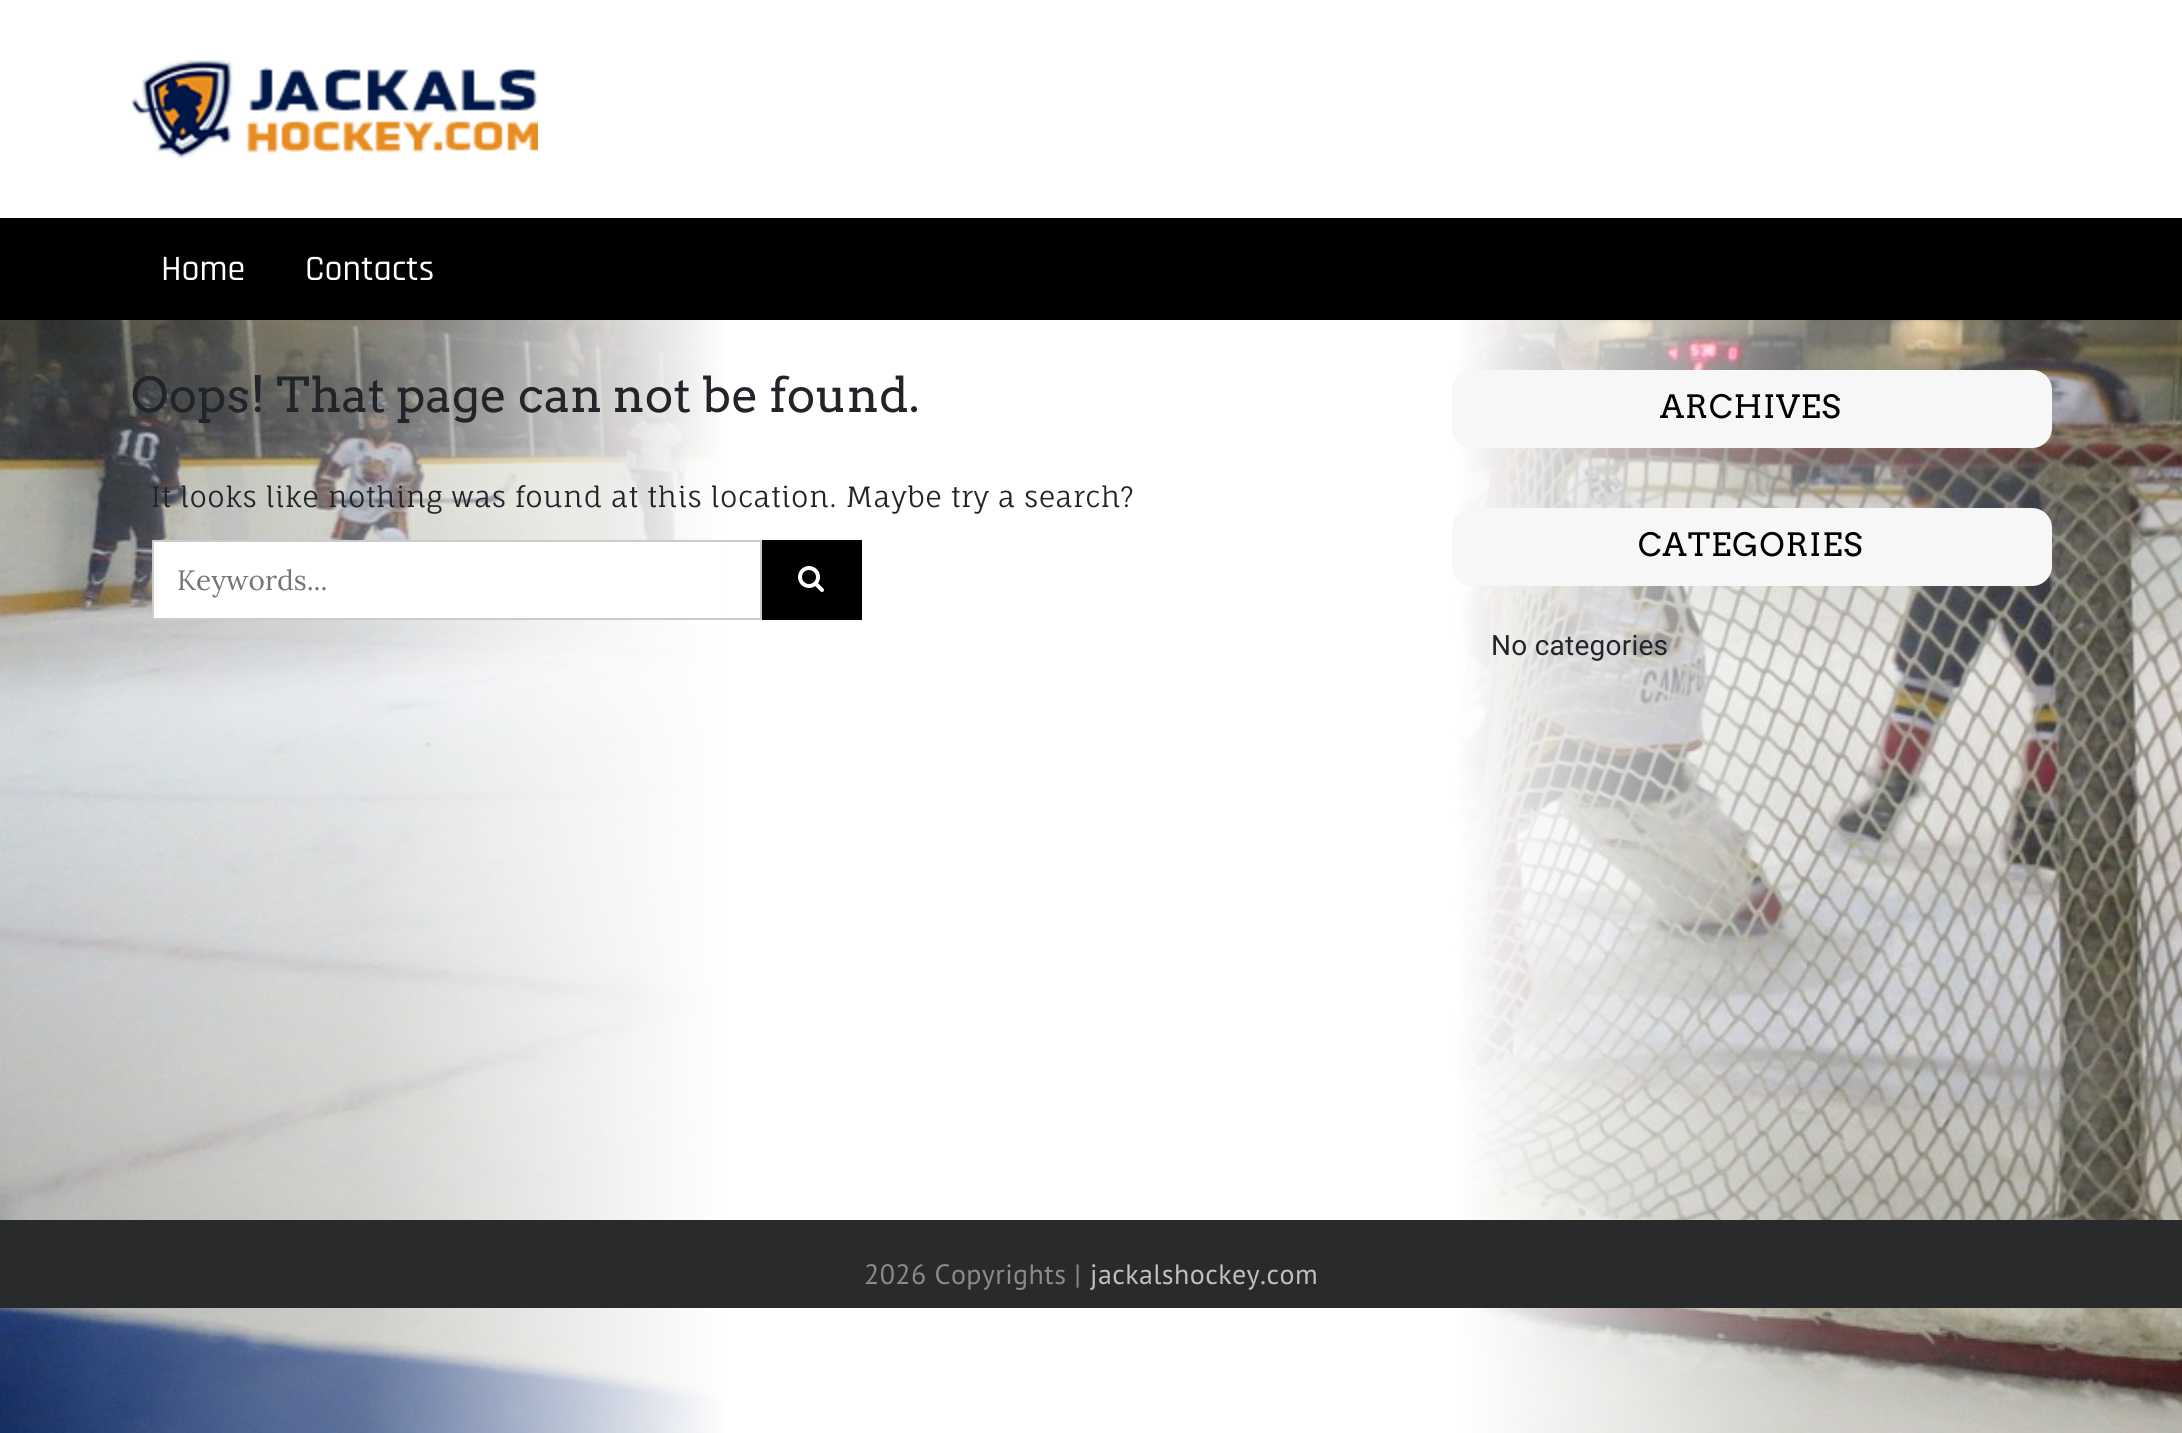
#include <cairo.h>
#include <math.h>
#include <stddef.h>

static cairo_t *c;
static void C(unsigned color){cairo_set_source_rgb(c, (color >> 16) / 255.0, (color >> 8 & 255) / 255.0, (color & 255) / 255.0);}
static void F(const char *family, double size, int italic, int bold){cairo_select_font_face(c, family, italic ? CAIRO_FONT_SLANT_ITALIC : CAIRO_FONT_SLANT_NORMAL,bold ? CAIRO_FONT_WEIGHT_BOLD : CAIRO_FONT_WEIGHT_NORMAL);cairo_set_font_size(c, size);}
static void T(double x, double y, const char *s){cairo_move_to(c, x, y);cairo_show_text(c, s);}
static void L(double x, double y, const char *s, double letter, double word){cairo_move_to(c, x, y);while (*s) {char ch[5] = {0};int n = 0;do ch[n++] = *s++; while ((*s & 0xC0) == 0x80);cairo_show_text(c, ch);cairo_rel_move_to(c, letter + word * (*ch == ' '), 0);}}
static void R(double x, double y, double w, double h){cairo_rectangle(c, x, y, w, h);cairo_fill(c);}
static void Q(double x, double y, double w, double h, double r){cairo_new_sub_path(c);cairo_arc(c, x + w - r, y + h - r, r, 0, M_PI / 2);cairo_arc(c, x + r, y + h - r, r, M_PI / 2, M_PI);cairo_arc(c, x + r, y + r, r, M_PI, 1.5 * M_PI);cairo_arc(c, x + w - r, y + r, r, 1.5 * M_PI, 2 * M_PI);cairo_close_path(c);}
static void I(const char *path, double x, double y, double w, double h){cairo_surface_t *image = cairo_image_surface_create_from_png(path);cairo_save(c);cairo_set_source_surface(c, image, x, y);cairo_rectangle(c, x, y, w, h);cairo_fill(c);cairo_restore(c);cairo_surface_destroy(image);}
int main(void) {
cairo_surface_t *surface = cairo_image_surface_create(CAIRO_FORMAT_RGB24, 2182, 1433);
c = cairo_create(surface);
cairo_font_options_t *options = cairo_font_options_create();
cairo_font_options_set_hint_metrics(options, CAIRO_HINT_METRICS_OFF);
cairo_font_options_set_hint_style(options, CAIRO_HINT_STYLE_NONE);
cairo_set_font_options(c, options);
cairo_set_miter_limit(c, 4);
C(0xffffff);
cairo_paint(c);
I("1.png",0,320,2182,1113);
I("2.png",132,60,406,98);
C(0x000000);
R(0,218,2182,102);
F("Rajdhani Medium",36,0,0);
C(0xffffff);
T(161,280,"Home");
T(305,280,"Contacts");
F("Arvo",48,0,0);
C(0x212529);
T(131,412,"Oops! That page can not be found.");
F("Fauna One",28,0,0);
L(151,507,"It looks like nothing was found at this location. Maybe try a search?",.4,0);
C(0xffffff);
R(154,542,567,76);
cairo_rectangle(c,153,541,608,78);
C(0xcccccc);
cairo_stroke(c);
F("Lora",28,0,0);
C(0x757575);
T(177,590,"Keywords...");
C(0x000000);
R(762,540,100,80);
I("3.png",798,566,26,26);
C(0xf7f7f7);
Q(1452,370,600,78,20);
cairo_fill(c);
F("Arvo",32,0,0);
C(0x000000);
L(1660,418,"ARCHIVES",1,0);
C(0xf7f7f7);
Q(1452,508,600,78,20);
cairo_fill(c);
C(0x000000);
L(1638,556,"CATEGORIES",1,0);
F("Roboto",28,0,0);
C(0x212529);
L(1491,655,"No categories",.25,0);
C(0x282a2b);
R(0,1220,2182,88);
F("PT Sans",28,0,0);
C(0x8c8989);
L(864,1284,"2026 Copyrights |",.4,0);
C(0xbfbfbf);
L(1090,1284,"jackalshockey.com",.4,0);
cairo_surface_write_to_png(surface, "o.png");
cairo_font_options_destroy(options);
cairo_destroy(c);
cairo_surface_destroy(surface);
return 0;
}
